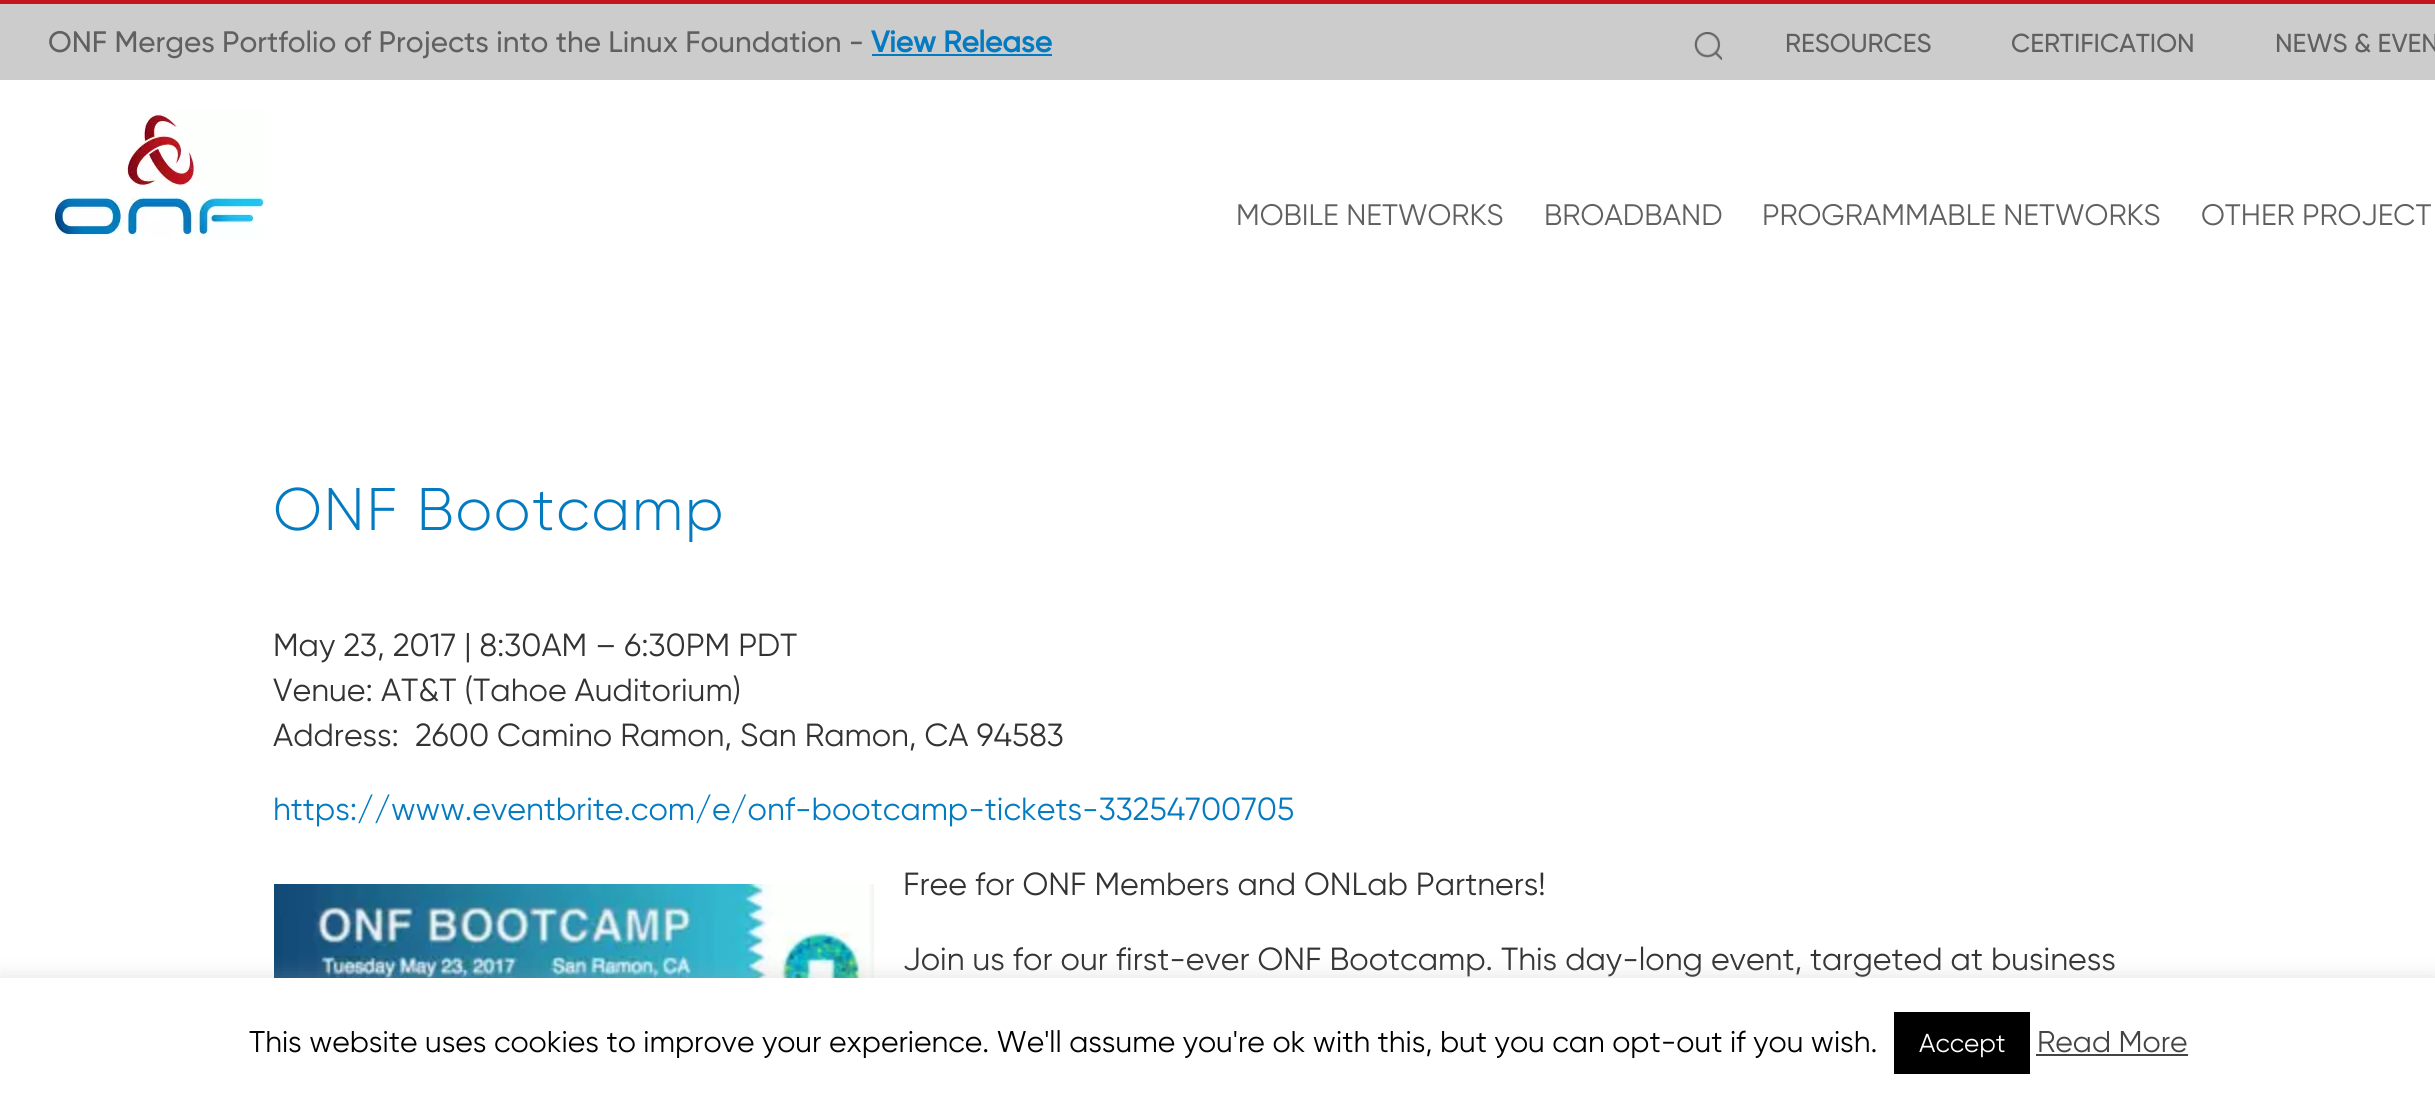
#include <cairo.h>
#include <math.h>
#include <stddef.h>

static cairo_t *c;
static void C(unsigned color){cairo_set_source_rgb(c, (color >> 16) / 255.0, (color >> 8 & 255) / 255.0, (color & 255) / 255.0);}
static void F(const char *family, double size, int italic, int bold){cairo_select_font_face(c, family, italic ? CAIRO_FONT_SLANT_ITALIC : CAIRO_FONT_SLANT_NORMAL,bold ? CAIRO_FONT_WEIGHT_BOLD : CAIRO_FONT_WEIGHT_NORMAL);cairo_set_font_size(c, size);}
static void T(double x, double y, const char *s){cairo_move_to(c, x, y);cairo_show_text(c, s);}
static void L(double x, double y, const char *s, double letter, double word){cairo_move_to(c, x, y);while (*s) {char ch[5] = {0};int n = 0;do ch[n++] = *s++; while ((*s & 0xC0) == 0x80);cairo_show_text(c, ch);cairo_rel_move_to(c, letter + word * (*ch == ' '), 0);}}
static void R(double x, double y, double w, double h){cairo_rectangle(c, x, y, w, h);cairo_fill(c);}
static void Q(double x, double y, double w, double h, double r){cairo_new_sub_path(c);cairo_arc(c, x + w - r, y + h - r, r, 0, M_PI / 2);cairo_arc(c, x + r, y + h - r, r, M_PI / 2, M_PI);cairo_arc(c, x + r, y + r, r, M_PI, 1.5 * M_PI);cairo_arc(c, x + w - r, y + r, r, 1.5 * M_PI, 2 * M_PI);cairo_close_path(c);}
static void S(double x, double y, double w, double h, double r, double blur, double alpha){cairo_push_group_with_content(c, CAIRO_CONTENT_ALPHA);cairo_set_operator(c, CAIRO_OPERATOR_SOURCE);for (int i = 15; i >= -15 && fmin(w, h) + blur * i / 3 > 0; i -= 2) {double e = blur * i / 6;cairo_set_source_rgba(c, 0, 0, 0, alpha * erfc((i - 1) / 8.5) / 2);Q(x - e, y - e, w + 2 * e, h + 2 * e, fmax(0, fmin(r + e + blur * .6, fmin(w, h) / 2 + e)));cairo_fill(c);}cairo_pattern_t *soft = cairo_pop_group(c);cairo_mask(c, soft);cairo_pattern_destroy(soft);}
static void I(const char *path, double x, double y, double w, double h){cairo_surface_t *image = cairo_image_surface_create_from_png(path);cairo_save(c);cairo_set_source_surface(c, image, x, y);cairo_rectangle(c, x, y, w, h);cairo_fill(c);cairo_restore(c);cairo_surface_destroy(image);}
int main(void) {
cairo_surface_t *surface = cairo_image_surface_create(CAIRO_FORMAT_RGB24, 2435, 1098);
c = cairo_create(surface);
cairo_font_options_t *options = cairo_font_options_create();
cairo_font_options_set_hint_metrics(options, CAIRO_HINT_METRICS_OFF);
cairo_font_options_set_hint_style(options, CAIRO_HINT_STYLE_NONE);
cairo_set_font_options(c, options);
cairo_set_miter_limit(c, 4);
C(0xffffff);
cairo_paint(c);
C(0xcccccc);
R(0,4,2435,76);
C(0xc4161c);
R(0,0,2435,4);
F("Gilroy Medium",29.6,0,0);
C(0x606060);
T(48,52,"ONF Merges Portfolio of Projects into the Linux Foundation -");
F("Gilroy",29.6,0,1);
C(0x047bc1);
T(871,52,"View Release");
R(872,54,180,2);
I("1.png",1694,32,28,28);
F("Gilroy Medium",26,0,0);
C(0x606060);
T(1785,52,"RESOURCES");
T(2011,52,"CERTIFICATION");
T(2275,52,"NEWS & EVEN");
I("2.png",52,110,213,129);
F("Gilroy",29.6,0,0);
T(1236,225,"MOBILE NETWORKS");
T(1544,225,"BROADBAND");
T(1762,225,"PROGRAMMABLE NETWORKS");
T(2201,225,"OTHER PROJECT");
F("Gilroy Light",60,0,0);
C(0x047bc1);
L(273,530,"ONF Bootcamp",1.6,0);
F("Gilroy",32,0,0);
C(0x333333);
T(273,656,"May 23, 2017 | 8:30AM – 6:30PM PDT");
T(273,701,"Venue: AT&T (Tahoe Auditorium)");
T(273,746,"Address:  2600 Camino Ramon, San Ramon, CA 94583");
C(0x047bc1);
T(273,820,"https://www.eventbrite.com/e/onf-bootcamp-tickets-33254700705");
I("3.png",274,884,600,94);
C(0x333333);
T(903,895,"Free for ONF Members and ONLab Partners!");
T(903,970,"Join us for our first-ever ONF Bootcamp. This day-long event, targeted at business");
C(0xacabab);
S(0,976,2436,120,0,10,.3);
C(0xffffff);
R(0,978,2435,120);
F("Gilroy",30,0,0);
C(0x000000);
T(249,1052,"This website uses cookies to improve your experience. We'll assume you're ok with this, but you can opt-out if you wish.");
R(1894,1012,136,62);
F("Gilroy",26,0,0);
C(0xffffff);
T(1919,1052,"Accept");
F("Gilroy",30,0,0);
C(0x444444);
T(2037,1052,"Read More");
R(2036,1054,152,2);
cairo_surface_write_to_png(surface, "o.png");
cairo_font_options_destroy(options);
cairo_destroy(c);
cairo_surface_destroy(surface);
return 0;
}
